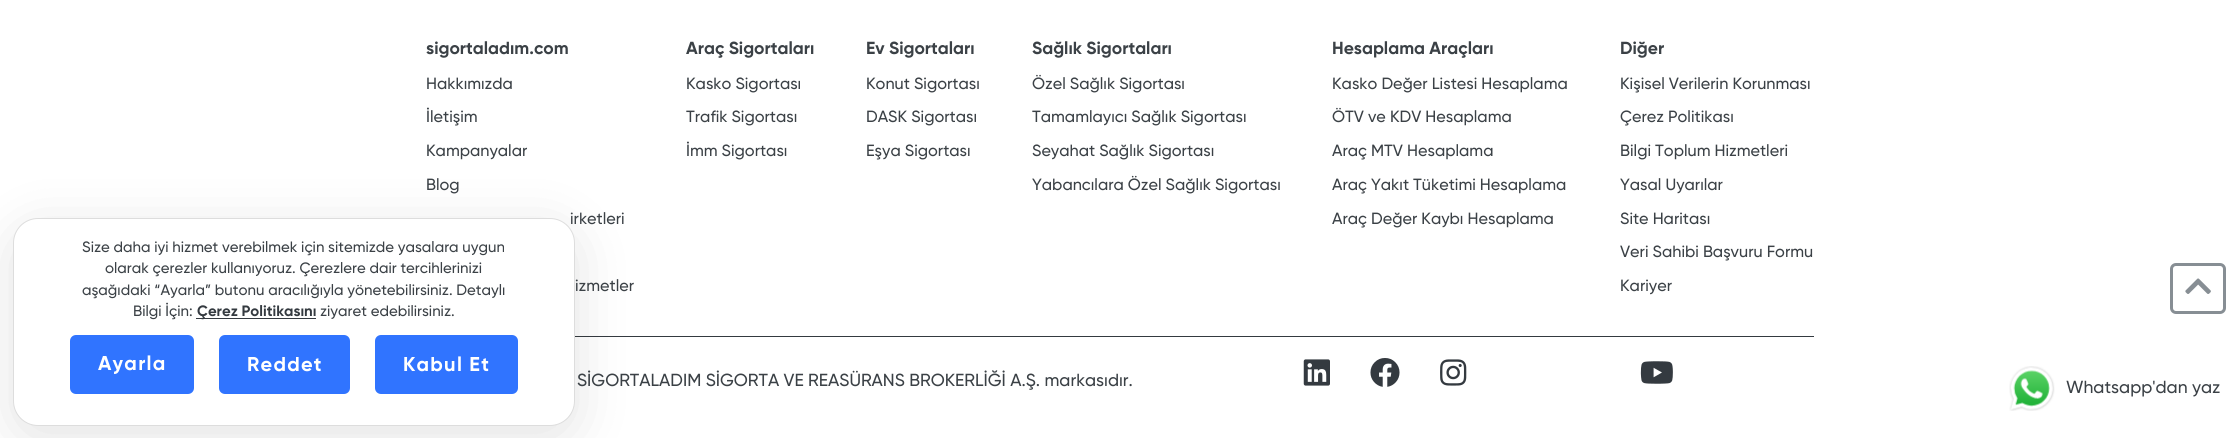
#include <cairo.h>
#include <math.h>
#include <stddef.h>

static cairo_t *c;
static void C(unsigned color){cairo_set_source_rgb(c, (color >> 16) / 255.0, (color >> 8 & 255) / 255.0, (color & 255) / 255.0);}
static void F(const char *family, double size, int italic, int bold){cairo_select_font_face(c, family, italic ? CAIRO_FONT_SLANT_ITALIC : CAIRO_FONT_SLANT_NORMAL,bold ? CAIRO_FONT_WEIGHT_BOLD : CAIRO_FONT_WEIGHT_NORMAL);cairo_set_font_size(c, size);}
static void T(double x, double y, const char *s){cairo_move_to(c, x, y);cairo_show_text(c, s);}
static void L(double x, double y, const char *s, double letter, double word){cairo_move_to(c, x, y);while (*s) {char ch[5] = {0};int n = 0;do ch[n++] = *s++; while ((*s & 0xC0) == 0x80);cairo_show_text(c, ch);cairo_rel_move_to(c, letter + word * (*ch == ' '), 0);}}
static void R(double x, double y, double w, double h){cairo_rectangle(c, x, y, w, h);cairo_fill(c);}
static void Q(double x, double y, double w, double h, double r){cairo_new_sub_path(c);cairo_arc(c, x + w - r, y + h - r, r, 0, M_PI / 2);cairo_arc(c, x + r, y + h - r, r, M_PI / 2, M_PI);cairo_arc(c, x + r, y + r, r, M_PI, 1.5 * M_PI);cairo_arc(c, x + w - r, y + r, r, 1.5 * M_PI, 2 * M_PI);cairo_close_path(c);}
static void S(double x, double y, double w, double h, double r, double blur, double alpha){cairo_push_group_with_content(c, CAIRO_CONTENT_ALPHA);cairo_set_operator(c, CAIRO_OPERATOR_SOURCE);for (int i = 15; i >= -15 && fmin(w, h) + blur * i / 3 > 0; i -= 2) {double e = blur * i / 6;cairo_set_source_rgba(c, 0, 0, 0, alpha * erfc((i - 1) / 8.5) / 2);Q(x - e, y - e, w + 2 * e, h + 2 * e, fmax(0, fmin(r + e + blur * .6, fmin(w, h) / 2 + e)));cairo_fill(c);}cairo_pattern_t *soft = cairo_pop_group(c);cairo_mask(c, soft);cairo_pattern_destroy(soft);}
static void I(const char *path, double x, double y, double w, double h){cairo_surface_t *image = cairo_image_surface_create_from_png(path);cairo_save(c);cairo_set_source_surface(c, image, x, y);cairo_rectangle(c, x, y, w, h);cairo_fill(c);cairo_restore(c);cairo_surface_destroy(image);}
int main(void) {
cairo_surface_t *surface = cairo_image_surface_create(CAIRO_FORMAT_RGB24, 2238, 438);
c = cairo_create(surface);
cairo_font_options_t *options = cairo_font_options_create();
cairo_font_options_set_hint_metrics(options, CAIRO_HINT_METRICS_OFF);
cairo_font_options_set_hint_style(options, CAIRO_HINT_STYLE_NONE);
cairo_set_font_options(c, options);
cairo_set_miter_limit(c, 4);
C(0xffffff);
cairo_paint(c);
C(0x343a40);
R(575,336,1239,1);
C(0x000000);
S(13,230,562,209,25,28,.11);
F("Gilroy Medium",16.25,0,0);
C(0x3b4146);
T(570,224,"irketleri");
C(0xffffff);
Q(13.5,218.5,561,207,24.5);
cairo_fill_preserve(c);
C(0xdddddd);
cairo_set_line_width(c,1);
cairo_stroke(c);
F("Gilroy Medium",15,0,0);
C(0x3b4146);
T(82,252,"Size daha iyi hizmet verebilmek için sitemizde yasalara uygun");
T(105,273,"olarak çerezler kullanıyoruz. Çerezlere dair tercihlerinizi");
T(82,295,"aşağıdaki “Ayarla” butonu aracılığıyla yönetebilirsiniz. Detaylı");
T(133,316,"Bilgi İçin:");
C(0x343a40);
R(196,318,120,1);
F("Gilroy",15,0,1);
T(197,316,"Çerez Politikasını");
F("Gilroy Medium",15,0,0);
C(0x3b4146);
T(320,316,"ziyaret edebilirsiniz.");
C(0x3074ff);
Q(71.5,336.5,121,56,4.5);
cairo_fill_preserve(c);
cairo_set_line_width(c,3);
cairo_stroke(c);
F("Gilroy",20,0,1);
C(0xffffff);
L(98,370,"Ayarla",1.25,0);
C(0x3074ff);
Q(220.5,336.5,128,56,4.5);
cairo_fill_preserve(c);
cairo_stroke(c);
C(0xffffff);
L(247,371,"Reddet",1.25,0);
C(0x3074ff);
Q(376.5,336.5,140,56,4.5);
cairo_fill_preserve(c);
cairo_stroke(c);
C(0xffffff);
L(403,371,"Kabul Et",1.25,0);
F("Gilroy",17.5,0,1);
C(0x3b4146);
T(426,54,"sigortaladım.com");
F("Gilroy Medium",16.25,0,0);
T(426,89,"Hakkımızda");
T(426,122,"İletişim");
T(426,156,"Kampanyalar");
T(426,190,"Blog");
T(575,291,"izmetler");
F("Gilroy",17.5,0,1);
T(686,54,"Araç Sigortaları");
F("Gilroy Medium",16.25,0,0);
T(686,89,"Kasko Sigortası");
T(686,122,"Trafik Sigortası");
T(686,156,"İmm Sigortası");
F("Gilroy",17.5,0,1);
T(866,54,"Ev Sigortaları");
F("Gilroy Medium",16.25,0,0);
T(866,89,"Konut Sigortası");
T(866,122,"DASK Sigortası");
T(866,156,"Eşya Sigortası");
F("Gilroy",17.5,0,1);
T(1032,54,"Sağlık Sigortaları");
F("Gilroy Medium",16.25,0,0);
T(1032,89,"Özel Sağlık Sigortası");
T(1032,122,"Tamamlayıcı Sağlık Sigortası");
T(1032,156,"Seyahat Sağlık Sigortası");
T(1032,190,"Yabancılara Özel Sağlık Sigortası");
F("Gilroy",17.5,0,1);
T(1332,54,"Hesaplama Araçları");
F("Gilroy Medium",16.25,0,0);
T(1332,89,"Kasko Değer Listesi Hesaplama");
T(1332,122,"ÖTV ve KDV Hesaplama");
T(1332,156,"Araç MTV Hesaplama");
T(1332,190,"Araç Yakıt Tüketimi Hesaplama");
T(1332,224,"Araç Değer Kaybı Hesaplama");
F("Gilroy",17.5,0,1);
T(1620,54,"Diğer");
F("Gilroy Medium",16.25,0,0);
T(1620,89,"Kişisel Verilerin Korunması");
T(1620,122,"Çerez Politikası");
T(1620,156,"Bilgi Toplum Hizmetleri");
T(1620,190,"Yasal Uyarılar");
T(1620,224,"Site Haritası");
T(1620,257,"Veri Sahibi Başvuru Formu");
T(1620,291,"Kariyer");
F("Gilroy Medium",17.5,0,0);
T(577,386,"SİGORTALADIM SİGORTA VE REASÜRANS BROKERLİĞİ A.Ş. markasıdır.");
I("1.png",1303,359,27,27);
I("2.png",1370,358,30,29);
I("3.png",1440,359,27,27);
I("4.png",1640,361,33,23);
Q(2171.5,264.5,53,48,4.5);
C(0x878e94);
cairo_stroke(c);
I("5.png",2185,278,26,16);
I("6.png",2009,366,46,45);
C(0x3b4146);
T(2066,393,"Whatsapp'dan yaz");
cairo_surface_write_to_png(surface, "o.png");
cairo_font_options_destroy(options);
cairo_destroy(c);
cairo_surface_destroy(surface);
return 0;
}
